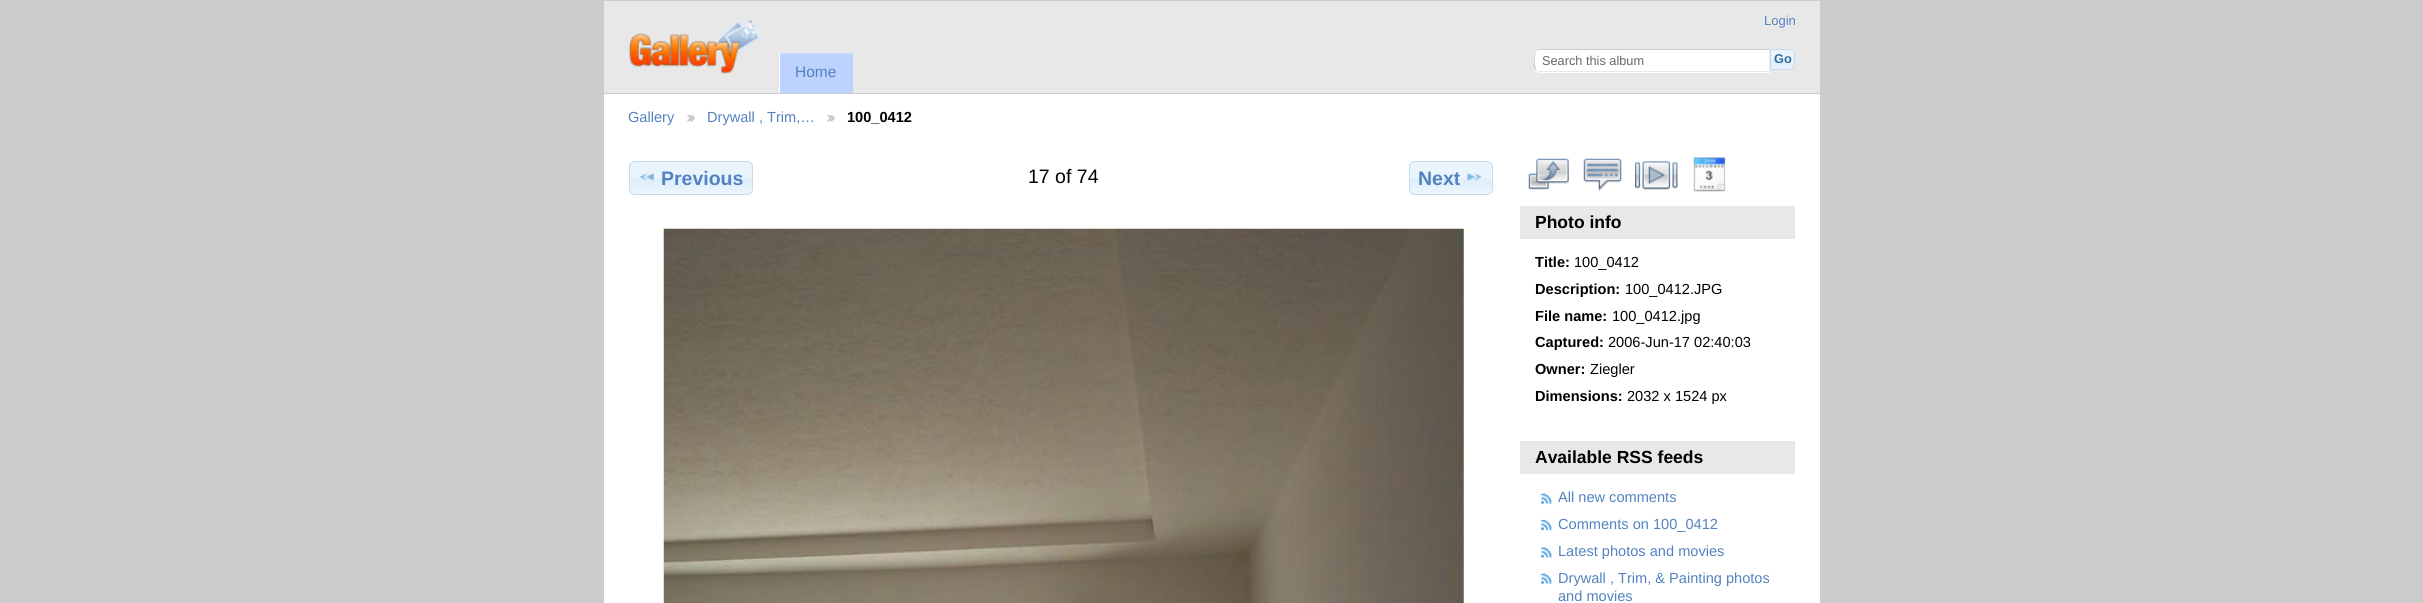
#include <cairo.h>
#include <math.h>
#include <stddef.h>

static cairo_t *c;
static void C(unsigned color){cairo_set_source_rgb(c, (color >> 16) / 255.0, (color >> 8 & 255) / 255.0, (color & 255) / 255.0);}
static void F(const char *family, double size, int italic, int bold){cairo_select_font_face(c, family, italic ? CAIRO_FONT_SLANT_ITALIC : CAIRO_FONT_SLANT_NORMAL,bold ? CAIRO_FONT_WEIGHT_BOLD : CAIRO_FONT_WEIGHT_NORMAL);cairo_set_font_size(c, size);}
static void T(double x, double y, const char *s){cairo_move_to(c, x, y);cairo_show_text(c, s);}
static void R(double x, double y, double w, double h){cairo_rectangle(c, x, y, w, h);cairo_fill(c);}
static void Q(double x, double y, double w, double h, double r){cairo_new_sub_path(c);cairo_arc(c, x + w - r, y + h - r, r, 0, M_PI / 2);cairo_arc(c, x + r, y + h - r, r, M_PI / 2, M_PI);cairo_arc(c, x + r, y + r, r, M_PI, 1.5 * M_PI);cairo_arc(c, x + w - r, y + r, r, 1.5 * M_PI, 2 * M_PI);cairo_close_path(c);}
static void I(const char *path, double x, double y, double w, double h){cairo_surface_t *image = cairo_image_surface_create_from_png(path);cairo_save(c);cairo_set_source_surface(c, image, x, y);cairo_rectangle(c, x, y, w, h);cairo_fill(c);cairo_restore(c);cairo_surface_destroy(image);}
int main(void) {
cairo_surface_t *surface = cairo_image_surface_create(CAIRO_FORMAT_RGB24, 2423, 603);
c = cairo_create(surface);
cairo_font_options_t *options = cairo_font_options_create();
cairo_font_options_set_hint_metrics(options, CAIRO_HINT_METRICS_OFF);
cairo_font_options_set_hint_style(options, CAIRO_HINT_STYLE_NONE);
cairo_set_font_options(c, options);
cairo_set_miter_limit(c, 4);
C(0xcccccc);
cairo_paint(c);
C(0xffffff);
R(604,94,1216,509);
C(0xe8e8e8);
R(604,1,1216,92);
I("1.png",628,19,133,55);
F("Liberation Sans",13,0,0);
C(0x5382bf);
T(1764,25,"Login");
C(0xffffff);
cairo_new_path(c);
cairo_move_to(c,1540,49);
cairo_line_to(c,1770,49);
cairo_line_to(c,1770,73);
cairo_line_to(c,1540,73);
cairo_curve_to(c,1536.5,73,1534,70.5,1534,67);
cairo_line_to(c,1534,55);
cairo_curve_to(c,1534,51.5,1536.5,49,1540,49);
cairo_close_path(c);
cairo_fill(c);
C(0xcccccc);
cairo_new_path(c);
cairo_move_to(c,1540,49);
cairo_curve_to(c,1538,49,1537,50,1536,51);
cairo_curve_to(c,1537,51,1538,50,1540,50);
cairo_line_to(c,1769,50);
cairo_line_to(c,1770,49);
cairo_close_path(c);
cairo_fill(c);
C(0xe8e8e8);
cairo_new_path(c);
cairo_move_to(c,1770,72);
cairo_line_to(c,1770,49);
cairo_line_to(c,1769,50);
cairo_line_to(c,1769,71);
cairo_line_to(c,1768.5,71);
cairo_line_to(c,1769.5,72);
cairo_close_path(c);
cairo_fill(c);
cairo_new_path(c);
cairo_move_to(c,1770,72);
cairo_line_to(c,1539,72);
cairo_line_to(c,1536,70);
cairo_line_to(c,1537,70);
cairo_curve_to(c,1537,71,1538,71,1540,71);
cairo_line_to(c,1768,71);
cairo_close_path(c);
cairo_fill(c);
C(0xcccccc);
cairo_new_path(c);
cairo_move_to(c,1536,51);
cairo_curve_to(c,1533.5,53.5,1534,57,1534,60.5);
cairo_curve_to(c,1534,63.5,1533,68,1536,70.5);
cairo_line_to(c,1536.5,69.5);
cairo_curve_to(c,1534.5,67.5,1534.5,57.5,1535,55);
cairo_curve_to(c,1535,53.5,1535.5,52.5,1536.5,51.5);
cairo_close_path(c);
cairo_fill(c);
F("Liberation Sans",12.75,0,0);
C(0x666666);
T(1542,65,"Search this album");
I("2.png",1771,49,24,21);
cairo_new_path(c);
cairo_move_to(c,1770.5,49.5);
cairo_line_to(c,1789,49.5);
cairo_curve_to(c,1792,49.5,1794.5,52,1794.5,55);
cairo_line_to(c,1794.5,64);
cairo_curve_to(c,1794.5,67,1792,69.5,1789,69.5);
cairo_line_to(c,1770.5,69.5);
cairo_close_path(c);
C(0xc5dbec);
cairo_set_line_width(c,1);
cairo_stroke(c);
F("Liberation Sans",12.75,0,1);
C(0x2e6e9e);
T(1774,63,"Go");
C(0xbdd2ff);
R(780,54,73,39);
C(0xcfdeff);
R(779,53,74,1);
C(0xffffff);
R(779,53,1,40);
F("Liberation Sans",15.5,0,0);
C(0x5382bf);
T(795,77,"Home");
F("Liberation Sans",14.6,0,0);
T(628,122,"Gallery");
I("3.png",687,115,8,7);
T(707,122,"Drywall , Trim,…");
I("3.png",827,115,8,7);
F("Liberation Sans",14.6,0,1);
C(0x000000);
T(847,122,"100_0412");
I("4.png",629,161,123,34);
Q(629.5,161.5,123,33,5.5);
C(0xc5dbec);
cairo_stroke(c);
I("5.png",639,173,15,8);
F("Liberation Sans",19.5,0,1);
C(0x5382bf);
T(661,185,"Previous");
F("Liberation Sans",19.5,0,0);
C(0x000000);
T(1028,183,"17 of 74");
I("6.png",1409,161,83,34);
Q(1409.5,161.5,83,33,5.5);
C(0xc5dbec);
cairo_stroke(c);
F("Liberation Sans",19.5,0,1);
C(0x5382bf);
T(1418,185,"Next");
I("7.png",1467,173,15,8);
I("8.png",663,228,801,375);
I("9.png",1528,158,41,32);
I("10.png",1583,158,39,34);
I("11.png",1635,161,43,29);
I("12.png",1693,157,33,35);
C(0xe8e8e8);
R(1520,206,275,33);
F("Liberation Sans",17.5,0,1);
C(0x000000);
T(1535,228,"Photo info");
F("Liberation Sans",14.6,0,1);
T(1535,267,"Title:");
F("Liberation Sans",14.6,0,0);
T(1574,267,"100_0412");
F("Liberation Sans",14.6,0,1);
T(1535,294,"Description:");
F("Liberation Sans",14.6,0,0);
T(1625,294,"100_0412.JPG");
F("Liberation Sans",14.6,0,1);
T(1535,321,"File name:");
F("Liberation Sans",14.6,0,0);
T(1612,321,"100_0412.jpg");
F("Liberation Sans",14.6,0,1);
T(1535,347,"Captured:");
F("Liberation Sans",14.6,0,0);
T(1608,347,"2006-Jun-17 02:40:03");
F("Liberation Sans",14.6,0,1);
T(1535,374,"Owner:");
F("Liberation Sans",14.6,0,0);
T(1590,374,"Ziegler");
F("Liberation Sans",14.6,0,1);
T(1535,401,"Dimensions:");
F("Liberation Sans",14.6,0,0);
T(1627,401,"2032 x 1524 px");
C(0xe8e8e8);
R(1520,441,275,33);
F("Liberation Sans",17.5,0,1);
C(0x000000);
T(1535,463,"Available RSS feeds");
I("13.png",1541,493,11,11);
F("Liberation Sans",14.6,0,0);
C(0x5382bf);
T(1558,502,"All new comments");
I("14.png",1541,519,11,12);
T(1558,529,"Comments on 100_0412");
I("15.png",1541,547,11,11);
T(1558,556,"Latest photos and movies");
I("13.png",1541,573,11,11);
T(1558,583,"Drywall , Trim, & Painting photos");
T(1558,601,"and movies");
cairo_surface_write_to_png(surface, "o.png");
cairo_font_options_destroy(options);
cairo_destroy(c);
cairo_surface_destroy(surface);
return 0;
}
